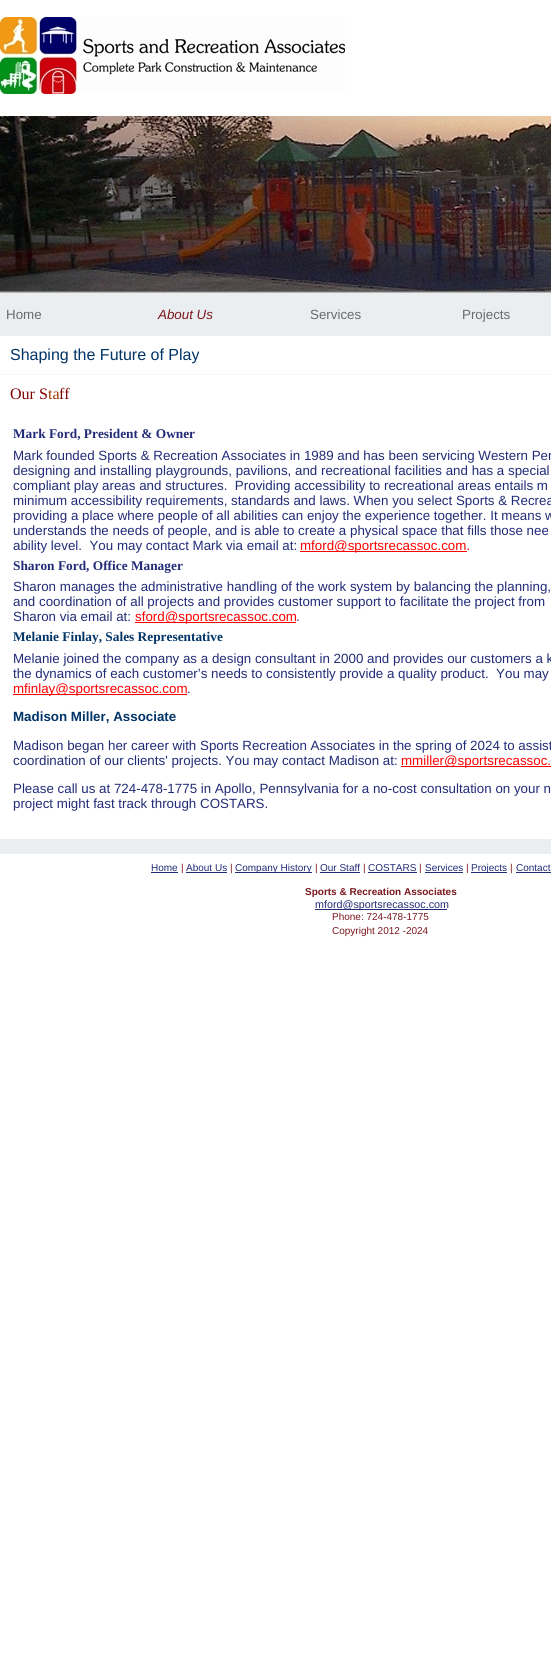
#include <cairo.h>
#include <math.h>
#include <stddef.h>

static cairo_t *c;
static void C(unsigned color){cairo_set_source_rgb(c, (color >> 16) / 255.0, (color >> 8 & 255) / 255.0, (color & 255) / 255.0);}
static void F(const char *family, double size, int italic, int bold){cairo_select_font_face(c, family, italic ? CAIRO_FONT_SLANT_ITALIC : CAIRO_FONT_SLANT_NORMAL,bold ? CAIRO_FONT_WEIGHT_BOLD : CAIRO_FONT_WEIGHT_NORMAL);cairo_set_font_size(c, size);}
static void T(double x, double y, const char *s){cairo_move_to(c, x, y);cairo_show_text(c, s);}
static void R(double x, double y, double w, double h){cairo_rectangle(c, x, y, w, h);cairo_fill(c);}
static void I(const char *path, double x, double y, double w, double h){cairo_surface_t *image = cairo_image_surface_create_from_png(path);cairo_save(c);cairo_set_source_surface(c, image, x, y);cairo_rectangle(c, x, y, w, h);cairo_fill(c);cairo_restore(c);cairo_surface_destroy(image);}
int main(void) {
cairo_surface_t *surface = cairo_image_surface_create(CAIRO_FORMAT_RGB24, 551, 1680);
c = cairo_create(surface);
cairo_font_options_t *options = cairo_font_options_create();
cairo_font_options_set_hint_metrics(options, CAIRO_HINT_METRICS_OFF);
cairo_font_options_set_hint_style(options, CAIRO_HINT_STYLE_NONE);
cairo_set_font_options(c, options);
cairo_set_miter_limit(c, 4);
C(0xffffff);
cairo_paint(c);
I("1.png",0,112,551,224);
I("2.png",0,17,345,77);
I("3.png",0,114,551,177);
F("Liberation Sans",13.35,0,0);
C(0x6a6a6a);
T(6,319,"Home");
F("Liberation Sans",13.35,1,0);
C(0x7a171c);
T(158,319,"About Us");
F("Liberation Sans",13.35,0,0);
C(0x6a6a6a);
T(310,319,"Services");
T(462,319,"Projects");
cairo_new_path(c);
cairo_move_to(c,0,374.5);
cairo_line_to(c,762,374.5);
C(0xeaeef1);
cairo_set_line_width(c,1);
cairo_set_dash(c,(double[]){1,1},2,0);
cairo_stroke(c);
F("Liberation Sans",16,0,0);
C(0x003366);
T(10,360,"Shaping the Future of Play");
F("Liberation Serif",16,0,0);
C(0x800000);
T(10,399,"Our S");
C(0x993300);
T(48,399,"ta");
C(0x800000);
T(59,399,"ff");
F("Liberation Serif",13.35,0,1);
C(0x212b77);
T(13,438,"Mark Ford, President & Owner");
F("Liberation Sans",13.35,0,0);
T(13,460,"Mark founded Sports & Recreation Associates in 1989 and has been servicing Western Pen");
T(13,475,"designing and installing playgrounds, pavilions, and recreational facilities and has a special");
T(13,490,"compliant play areas and structures.  Providing accessibility to recreational areas entails m");
T(13,505,"minimum accessibility requirements, standards and laws. When you select Sports & Recrea");
T(13,520,"providing a place where people of all abilities can enjoy the experience together. It means w");
T(13,535,"understands the needs of people, and is able to create a physical space that fills those nee");
T(13,550,"ability level.  You may contact Mark via email at:");
C(0xff0000);
R(300,551,167,1);
T(300,550,"mford@sportsrecassoc.com.");
F("Liberation Serif",13.35,0,1);
C(0x212b77);
T(13,570,"Sharon Ford, Office Manager");
F("Liberation Sans",13.35,0,0);
T(13,591,"Sharon manages the administrative handling of the work system by balancing the planning,");
T(13,606,"and coordination of all projects and provides customer support to facilitate the project from");
T(13,621,"Sharon via email at:");
C(0xff0000);
R(135,622,161,1);
T(135,621,"sford@sportsrecassoc.com");
C(0x212b77);
T(296,621,".");
F("Liberation Serif",13.35,0,1);
C(0x003366);
T(13,641,"Melanie Finlay, Sales Representative");
F("Liberation Sans",13.35,0,0);
C(0x212b77);
T(13,663,"Melanie joined the company as a design consultant in 2000 and provides our customers a k");
T(13,678,"the dynamics of each customer’s needs to consistently provide a quality product.  You may");
C(0xff0000);
R(13,694,174,1);
T(13,693,"mfinlay@sportsrecassoc.com");
C(0x212b77);
T(187,693,".");
F("Liberation Sans",13.35,0,1);
C(0x003366);
T(13,721,"Madison Miller, Associate");
F("Liberation Sans",13.35,0,0);
C(0x212b77);
T(13,750,"Madison began her career with Sports Recreation Associates in the spring of 2024 to assist");
T(13,765,"coordination of our clients' projects. You may contact Madison at:");
C(0xff0000);
R(401,766,150,1);
T(401,765,"mmiller@sportsrecassoc.");
C(0x212b77);
T(13,793,"Please call us at 724-478-1775 in Apollo, Pennsylvania for a no-cost consultation on your n");
T(13,808,"project might fast track through COSTARS.");
C(0xebeef0);
R(0,839,551,15);
F("Liberation Sans",10,0,0);
C(0x212b77);
T(151,871,"Home");
R(151,872,27,1);
C(0x7a171c);
T(181,871,"|");
C(0x212b77);
T(186,871,"About Us");
R(186,872,41,1);
C(0x7a171c);
T(230,871,"|");
C(0x212b77);
R(235,872,77,1);
T(235,871,"Company History");
C(0x7a171c);
T(315,871,"|");
C(0x212b77);
T(320,871,"Our Staff");
R(320,872,40,1);
C(0x7a171c);
T(363,871,"|");
C(0x212b77);
T(368,871,"COSTARS");
R(368,872,49,1);
C(0x7a171c);
T(419,871,"|");
C(0x212b77);
T(425,871,"Services");
R(425,872,38,1);
C(0x7a171c);
T(466,871,"|");
C(0x212b77);
R(471,872,36,1);
T(471,871,"Projects");
C(0x7a171c);
T(510,871,"|");
C(0x212b77);
T(516,871,"Contact");
R(516,872,35,1);
F("Liberation Sans",10,0,1);
C(0x7a171c);
T(305,895,"Sports & Recreation Associates");
C(0x212b77);
R(315,909,132,1);
F("Liberation Sans",10.75,0,0);
T(315,908,"mford@sportsrecassoc.com");
F("Liberation Sans",10,0,0);
C(0x7a171c);
T(332,920,"Phone: 724-478-1775");
T(332,934,"Copyright 2012 -2024");
cairo_surface_write_to_png(surface, "o.png");
cairo_font_options_destroy(options);
cairo_destroy(c);
cairo_surface_destroy(surface);
return 0;
}
